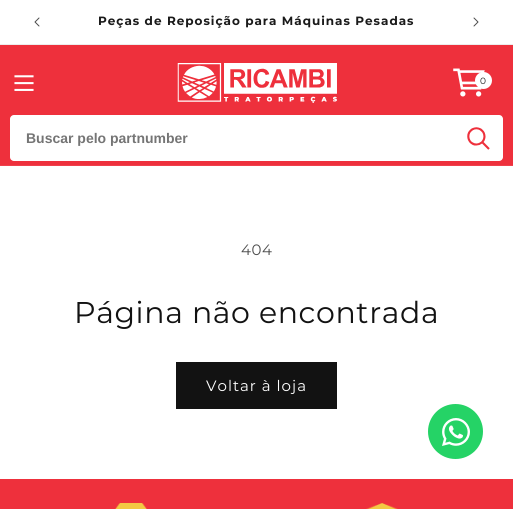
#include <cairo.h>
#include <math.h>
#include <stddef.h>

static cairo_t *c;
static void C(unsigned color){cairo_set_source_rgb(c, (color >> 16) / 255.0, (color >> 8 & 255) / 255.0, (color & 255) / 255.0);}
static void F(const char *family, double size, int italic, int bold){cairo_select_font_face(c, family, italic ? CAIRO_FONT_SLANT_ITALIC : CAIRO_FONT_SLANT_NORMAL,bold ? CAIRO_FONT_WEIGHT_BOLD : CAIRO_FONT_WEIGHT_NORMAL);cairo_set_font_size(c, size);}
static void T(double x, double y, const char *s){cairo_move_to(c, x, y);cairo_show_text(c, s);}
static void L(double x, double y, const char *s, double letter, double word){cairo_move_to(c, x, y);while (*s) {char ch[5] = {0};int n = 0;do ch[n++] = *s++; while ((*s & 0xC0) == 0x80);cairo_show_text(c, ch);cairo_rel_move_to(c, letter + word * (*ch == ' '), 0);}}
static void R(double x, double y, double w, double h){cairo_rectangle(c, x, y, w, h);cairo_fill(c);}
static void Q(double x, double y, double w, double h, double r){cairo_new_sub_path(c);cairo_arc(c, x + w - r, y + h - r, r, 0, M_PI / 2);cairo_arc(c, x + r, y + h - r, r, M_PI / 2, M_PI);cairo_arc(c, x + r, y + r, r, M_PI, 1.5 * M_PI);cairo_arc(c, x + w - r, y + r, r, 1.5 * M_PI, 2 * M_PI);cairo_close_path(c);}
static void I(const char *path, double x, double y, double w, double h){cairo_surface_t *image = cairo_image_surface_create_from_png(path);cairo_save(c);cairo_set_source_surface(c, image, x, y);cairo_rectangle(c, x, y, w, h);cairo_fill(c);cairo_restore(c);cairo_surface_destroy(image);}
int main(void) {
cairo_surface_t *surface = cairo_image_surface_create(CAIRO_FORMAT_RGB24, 513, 509);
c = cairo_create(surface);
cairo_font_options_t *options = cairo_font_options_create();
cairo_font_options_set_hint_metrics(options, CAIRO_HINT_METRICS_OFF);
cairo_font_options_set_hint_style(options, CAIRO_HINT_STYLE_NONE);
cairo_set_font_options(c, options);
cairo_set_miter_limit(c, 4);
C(0xffffff);
cairo_paint(c);
C(0xececec);
R(0,44,513,1);
I("1.png",34,17,6,10);
F("Montserrat",12,0,1);
C(0x1a1a1a);
L(98,25,"Peças de Reposição para Máquinas Pesadas",1,0);
I("2.png",473,17,6,10);
C(0xee303c);
R(0,45,513,120);
C(0xef414c);
R(0,165,513,1);
I("3.png",14,75,20,16);
I("4.png",177,63,160,40);
I("5.png",453,68,32,29);
C(0xffffff);
cairo_arc(c,483.5,80.5,8.5,0,2 * M_PI);
cairo_fill(c);
F("Montserrat",9,0,0);
C(0x1a1a1a);
L(480,84,"0",.6,0);
C(0xffffff);
Q(10,115,493,46,4);
cairo_fill(c);
F("Liberation Sans",14,0,1);
C(0x757575);
T(26,143,"Buscar pelo partnumber");
I("6.png",467,127,23,23);
F("Montserrat",15,0,0);
C(0x4d4d4d);
L(241,255,"404",.6,0);
F("Montserrat",30,0,0);
C(0x121212);
L(74,323,"Página não encontrada",.6,0);
R(176,362,161,47);
F("Montserrat",15,0,0);
C(0xffffff);
L(206,391,"Voltar à loja",1,0);
C(0x25d366);
cairo_new_path(c);
cairo_arc(c,455.5,431.5,27.5,0,2 * M_PI);
cairo_fill(c);
I("7.png",442,418,28,28);
C(0xee303c);
R(0,479,513,30);
I("8.png",115,503,32,6);
I("9.png",366,503,32,6);
cairo_surface_write_to_png(surface, "o.png");
cairo_font_options_destroy(options);
cairo_destroy(c);
cairo_surface_destroy(surface);
return 0;
}
